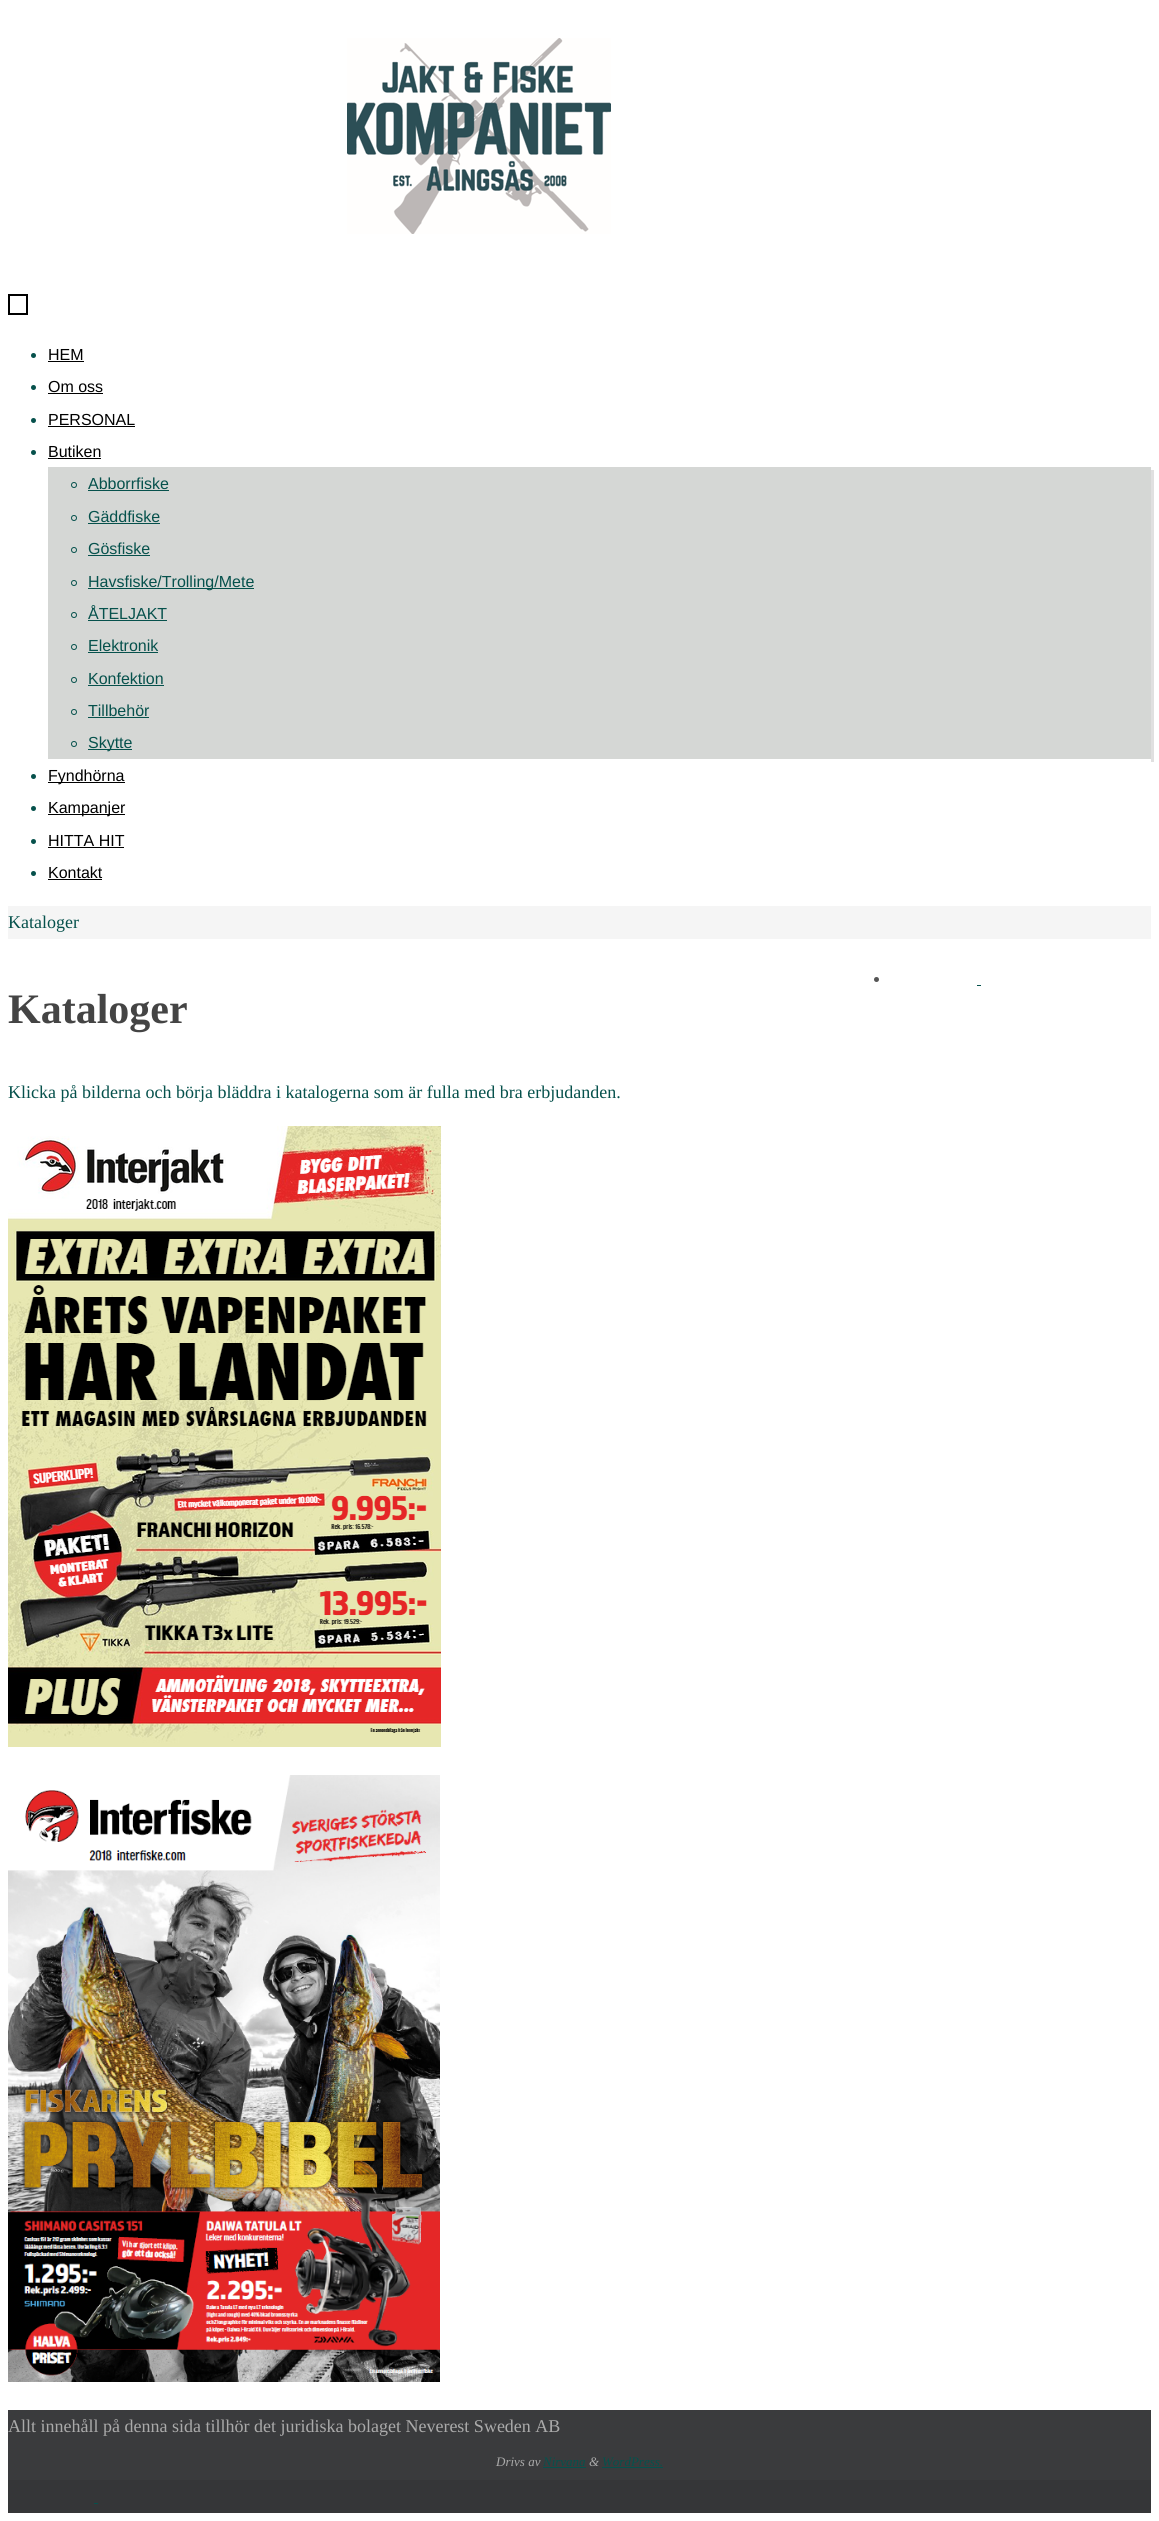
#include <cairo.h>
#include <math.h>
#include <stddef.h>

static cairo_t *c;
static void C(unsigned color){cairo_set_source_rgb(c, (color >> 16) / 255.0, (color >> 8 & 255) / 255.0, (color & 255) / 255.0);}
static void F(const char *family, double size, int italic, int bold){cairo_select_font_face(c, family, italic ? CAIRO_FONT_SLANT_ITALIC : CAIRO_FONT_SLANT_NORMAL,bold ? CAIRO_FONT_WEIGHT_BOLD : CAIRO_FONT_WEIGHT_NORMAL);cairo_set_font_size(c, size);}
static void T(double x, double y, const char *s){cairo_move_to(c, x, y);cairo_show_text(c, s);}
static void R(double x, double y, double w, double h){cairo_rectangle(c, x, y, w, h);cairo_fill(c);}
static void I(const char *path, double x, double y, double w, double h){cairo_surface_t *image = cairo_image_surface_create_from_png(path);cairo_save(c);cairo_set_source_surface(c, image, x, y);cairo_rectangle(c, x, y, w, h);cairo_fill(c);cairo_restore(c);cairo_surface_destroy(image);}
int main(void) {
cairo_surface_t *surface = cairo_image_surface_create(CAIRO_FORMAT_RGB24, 1159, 2521);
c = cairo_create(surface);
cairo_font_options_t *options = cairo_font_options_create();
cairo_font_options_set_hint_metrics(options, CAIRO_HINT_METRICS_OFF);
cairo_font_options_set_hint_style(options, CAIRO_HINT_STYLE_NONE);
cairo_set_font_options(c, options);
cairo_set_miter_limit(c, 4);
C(0xffffff);
cairo_paint(c);
I("1.png",347,38,264,196);
cairo_rectangle(c,9,295,18,19);
C(0x000000);
cairo_stroke(c);
C(0x06514c);
cairo_arc(c,33.5,355.5,2.5,0,2 * M_PI);
cairo_fill(c);
F("Liberation Sans",16,0,0);
C(0x000000);
T(48,360,"HEM");
R(48,361,36,1);
C(0x06514c);
cairo_new_path(c);
cairo_arc(c,33.5,387.5,2.5,0,2 * M_PI);
cairo_fill(c);
C(0x000000);
T(48,392,"Om oss");
R(48,393,55,1);
C(0x06514c);
cairo_new_path(c);
cairo_arc(c,33.5,420.5,2.5,0,2 * M_PI);
cairo_fill(c);
C(0x000000);
T(48,425,"PERSONAL");
R(48,426,87,1);
C(0x06514c);
cairo_new_path(c);
cairo_arc(c,33.5,452.5,2.5,0,2 * M_PI);
cairo_fill(c);
C(0x000000);
T(48,457,"Butiken");
R(48,458,53,1);
C(0xe0e0e0);
cairo_new_path(c);
cairo_move_to(c,51,759);
cairo_line_to(c,51,762);
cairo_line_to(c,1154,762);
cairo_line_to(c,1154,470);
cairo_line_to(c,1151,470);
cairo_line_to(c,1151,759);
cairo_close_path(c);
cairo_fill(c);
C(0xd5d7d5);
R(48,467,1103,292);
cairo_arc(c,74,485,2.5,0,2 * M_PI);
C(0x06514c);
cairo_set_line_width(c,1);
cairo_stroke(c);
T(88,489,"Abborrfiske");
R(88,490,81,1);
cairo_new_path(c);
cairo_arc(c,74,518,2.5,0,2 * M_PI);
cairo_stroke(c);
T(88,522,"Gäddfiske");
R(88,523,72,1);
cairo_new_path(c);
cairo_arc(c,74,550,2.5,0,2 * M_PI);
cairo_stroke(c);
T(88,554,"Gösfiske");
R(88,555,62,1);
cairo_new_path(c);
cairo_arc(c,74,583,2.5,0,2 * M_PI);
cairo_stroke(c);
R(88,588,166,1);
T(88,587,"Havsfiske/Trolling/Mete");
cairo_new_path(c);
cairo_arc(c,74,615,2.5,0,2 * M_PI);
cairo_stroke(c);
T(88,619,"ÅTELJAKT");
R(88,620,79,1);
cairo_new_path(c);
cairo_arc(c,74,647,2.5,0,2 * M_PI);
cairo_stroke(c);
T(88,651,"Elektronik");
R(88,652,70,1);
cairo_new_path(c);
cairo_arc(c,74,680,2.5,0,2 * M_PI);
cairo_stroke(c);
T(88,684,"Konfektion");
R(88,685,76,1);
cairo_new_path(c);
cairo_arc(c,74,712,2.5,0,2 * M_PI);
cairo_stroke(c);
T(88,716,"Tillbehör");
R(88,717,61,1);
cairo_new_path(c);
cairo_arc(c,74,744,2.5,0,2 * M_PI);
cairo_stroke(c);
R(88,749,44,1);
T(88,748,"Skytte");
C(0xffffff);
R(51,759,1100,3);
C(0x06514c);
cairo_new_path(c);
cairo_arc(c,33.5,776.5,2.5,0,2 * M_PI);
cairo_fill(c);
C(0x000000);
R(48,782,77,1);
T(48,781,"Fyndhörna");
C(0x06514c);
cairo_new_path(c);
cairo_arc(c,33.5,808.5,2.5,0,2 * M_PI);
cairo_fill(c);
C(0x000000);
R(48,814,77,1);
T(48,813,"Kampanjer");
C(0x06514c);
cairo_new_path(c);
cairo_arc(c,33.5,841.5,2.5,0,2 * M_PI);
cairo_fill(c);
C(0x000000);
T(48,846,"HITTA HIT");
R(48,847,76,1);
C(0x06514c);
cairo_new_path(c);
cairo_arc(c,33.5,873.5,2.5,0,2 * M_PI);
cairo_fill(c);
C(0x000000);
T(48,878,"Kontakt");
R(48,879,54,1);
C(0xf5f5f5);
R(8,906,1143,33);
F("Liberation Serif",18,0,0);
C(0x06514c);
T(8,928,"Kataloger");
C(0x555555);
cairo_new_path(c);
cairo_arc(c,876.5,979.5,2.5,0,2 * M_PI);
cairo_fill(c);
C(0x06514c);
R(977,985,4,1);
F("Liberation Serif",42,0,1);
C(0x444444);
T(8,1023,"Kataloger");
F("Liberation Serif",18,0,0);
C(0x06514c);
T(8,1098,"Klicka på bilderna och börja bläddra i katalogerna som är fulla med bra erbjudanden.");
I("2.png",8,1126,433,621);
I("3.png",8,1775,432,607);
C(0x3a3b3d);
R(8,2410,1143,70);
C(0xaaaaaa);
T(8,2432,"Allt innehåll på denna sida tillhör det juridiska bolaget Neverest Sweden AB");
F("Liberation Serif",13,1,0);
T(496,2466,"Drivs av");
C(0x06514c);
T(543,2466,"Nirvana");
R(543,2467,43,1);
C(0xaaaaaa);
T(589,2466,"&");
C(0x06514c);
T(602,2466,"WordPress.");
R(602,2467,61,1);
C(0x353638);
R(8,2480,1143,33);
C(0x06514c);
R(94,2503,4,1);
cairo_surface_write_to_png(surface, "o.png");
cairo_font_options_destroy(options);
cairo_destroy(c);
cairo_surface_destroy(surface);
return 0;
}
